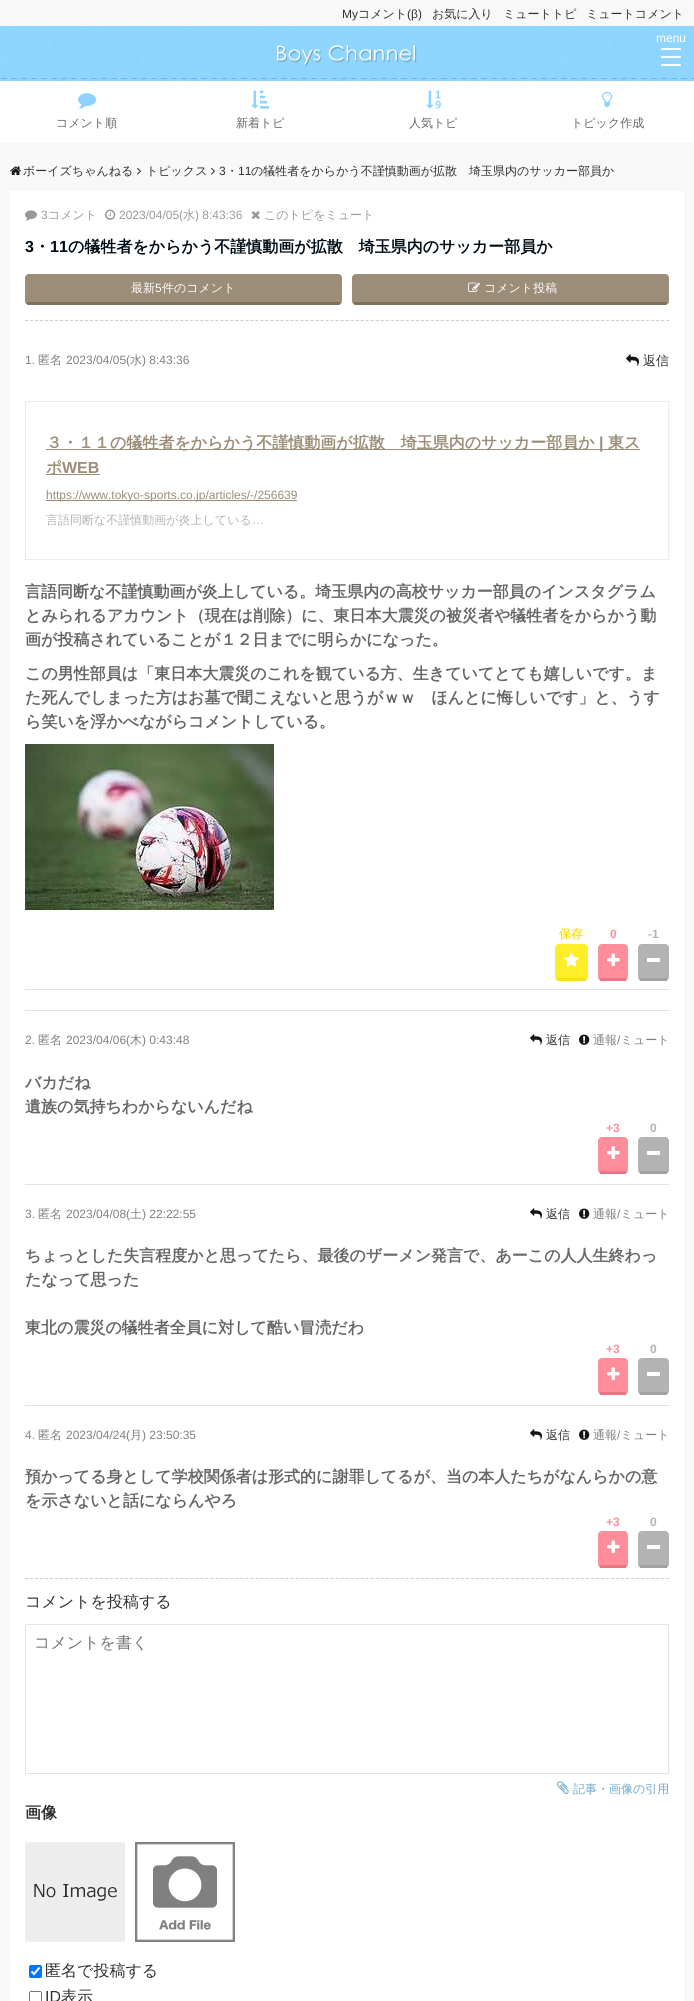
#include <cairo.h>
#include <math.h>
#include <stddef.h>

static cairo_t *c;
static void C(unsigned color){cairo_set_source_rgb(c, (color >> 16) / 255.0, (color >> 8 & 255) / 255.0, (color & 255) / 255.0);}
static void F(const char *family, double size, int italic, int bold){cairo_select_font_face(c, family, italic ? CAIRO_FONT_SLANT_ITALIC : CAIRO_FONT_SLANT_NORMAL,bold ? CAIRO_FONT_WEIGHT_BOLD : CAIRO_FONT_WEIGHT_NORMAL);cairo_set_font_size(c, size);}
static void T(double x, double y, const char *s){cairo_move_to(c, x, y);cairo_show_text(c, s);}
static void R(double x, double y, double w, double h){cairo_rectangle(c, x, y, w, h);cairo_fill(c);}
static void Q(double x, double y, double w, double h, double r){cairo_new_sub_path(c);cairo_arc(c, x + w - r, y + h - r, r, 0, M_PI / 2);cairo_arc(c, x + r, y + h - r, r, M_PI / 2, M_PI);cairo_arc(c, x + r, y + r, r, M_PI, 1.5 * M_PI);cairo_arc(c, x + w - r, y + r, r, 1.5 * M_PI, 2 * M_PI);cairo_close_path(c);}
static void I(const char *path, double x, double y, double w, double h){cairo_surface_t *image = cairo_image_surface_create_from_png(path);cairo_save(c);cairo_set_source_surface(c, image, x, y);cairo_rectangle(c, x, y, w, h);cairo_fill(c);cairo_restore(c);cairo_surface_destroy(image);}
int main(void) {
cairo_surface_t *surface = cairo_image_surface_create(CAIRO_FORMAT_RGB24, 694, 2001);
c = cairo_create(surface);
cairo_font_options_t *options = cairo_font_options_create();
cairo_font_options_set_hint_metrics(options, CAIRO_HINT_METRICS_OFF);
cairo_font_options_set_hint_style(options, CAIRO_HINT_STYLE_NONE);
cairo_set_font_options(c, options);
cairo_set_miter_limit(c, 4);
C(0xf8f8f8);
cairo_paint(c);
F("Liberation Sans",12,0,0);
C(0x303030);
T(342,18,"My");
F("WenQuanYi Zen Hei Medium",12,0,0);
T(358,18,"コメント");
F("Liberation Sans",12,0,0);
T(407,18,"(β)");
F("WenQuanYi Zen Hei Medium",12,0,0);
T(432,18,"お気に入り");
T(503,18,"ミュートトピ");
T(586,18,"ミュートコメント");
I("1.png",0,26,694,55);
F("Liberation Sans",12,0,0);
C(0xffffff);
T(656,42,"menu");
Q(661,48,20,2,1);
cairo_fill(c);
Q(661,56,20,2,1);
cairo_fill(c);
Q(661,64,20,2,1);
cairo_fill(c);
I("2.png",277,45,140,22);
R(0,81,694,62);
I("3.png",78,93,18,16);
F("WenQuanYi Zen Hei Medium",12,0,0);
C(0x666666);
T(56,127,"コメント順");
I("4.png",251,90,18,19);
T(236,127,"新着トピ");
I("5.png",426,90,15,19);
T(409,127,"人気トピ");
I("6.png",602,91,11,17);
T(571,127,"トピック作成");
I("7.png",10,166,11,9);
C(0x303030);
T(23,175,"ボーイズちゃんねる");
I("8.png",137,167,4,8);
T(146,175,"トピックス");
I("8.png",211,167,4,8);
F("Liberation Sans",12,0,0);
T(219,175,"3");
F("WenQuanYi Zen Hei Medium",12,0,0);
T(226,175,"・");
F("Liberation Sans",12,0,0);
T(238,175,"11");
F("WenQuanYi Zen Hei Medium",12,0,0);
T(251,175,"の犠牲者をからかう不謹慎動画が拡散　埼玉県内のサッカー部員か");
C(0xffffff);
R(10,191,674,1810);
cairo_new_path(c);
cairo_move_to(c,25,320.5);
cairo_line_to(c,669,320.5);
C(0xcccccc);
cairo_set_line_width(c,1);
cairo_set_dash(c,(double[]){3,2.01},2,0);
cairo_stroke(c);
I("9.png",25,210,12,11);
F("Liberation Sans",12,0,0);
C(0x999999);
T(41,219,"3");
F("WenQuanYi Zen Hei Medium",12,0,0);
T(48,219,"コメント");
I("10.png",105,209,11,11);
F("Liberation Sans",12,0,0);
T(119,219,"2023/04/05(");
F("WenQuanYi Zen Hei Medium",12,0,0);
T(183,219,"水");
F("Liberation Sans",12,0,0);
T(195,219,") 8:43:36");
I("11.png",251,211,9,8);
F("WenQuanYi Zen Hei Medium",12,0,0);
T(264,219,"このトピをミュート");
F("Liberation Sans",16,0,1);
C(0x000c15);
T(25,252,"3");
F("WenQuanYi Zen Hei",16,0,1);
T(34,252,"・");
F("Liberation Sans",16,0,1);
T(50,252,"11");
F("WenQuanYi Zen Hei",16,0,1);
T(68,252,"の犠牲者をからかう不謹慎動画が拡散　埼玉県内のサッカー部員か");
C(0x9b8d77);
Q(25,274,317,31,4);
cairo_fill(c);
cairo_set_source_rgba(c,0,0,0,0.2);
R(27,302,313,3);
F("WenQuanYi Zen Hei Medium",12,0,0);
C(0xffffff);
T(131,292,"最新");
F("Liberation Sans",12,0,0);
T(155,292,"5");
F("WenQuanYi Zen Hei Medium",12,0,0);
T(162,292,"件のコメント");
C(0x9b8d77);
Q(352,274,317,31,4);
cairo_fill(c);
cairo_set_source_rgba(c,0,0,0,0.2);
R(354,302,313,3);
I("12.png",468,282,12,10);
C(0xffffff);
T(484,292,"コメント投稿");
C(0xe3e3e3);
R(25,989,644,1);
F("Liberation Sans",12,0,0);
C(0x808080);
T(25,364,"1.");
F("WenQuanYi Zen Hei Medium",12,0,0);
T(38,364,"匿名");
F("Liberation Sans",12,0,0);
T(66,364,"2023/04/05(");
F("WenQuanYi Zen Hei Medium",12,0,0);
T(130,364,"水");
F("Liberation Sans",12,0,0);
T(142,364,") 8:43:36");
I("13.png",626,354,13,12);
F("WenQuanYi Zen Hei Medium",13,0,0);
C(0x303030);
T(643,365,"返信");
cairo_rectangle(c,25.5,401.5,643,158);
C(0xececec);
cairo_set_dash(c,NULL,0,0);
cairo_stroke(c);
C(0x9b8d77);
R(46,449,594,1);
F("WenQuanYi Zen Hei",16,0,1);
T(46,448,"３・１１の犠牲者をからかう不謹慎動画が拡散　埼玉県内のサッカー部員か");
F("Liberation Sans",16,0,1);
T(599,448,"|");
F("WenQuanYi Zen Hei",16,0,1);
T(608,448,"東ス");
R(46,474,54,1);
T(46,473,"ポ");
F("Liberation Sans",16,0,1);
T(62,473,"WEB");
R(46,500,251,1);
F("Liberation Sans",12,0,0);
T(46,499,"https://www.tokyo-sports.co.jp/articles/-/256639");
F("WenQuanYi Zen Hei Medium",12,0,0);
C(0xb3b3b3);
T(46,524,"言語同断な不謹慎動画が炎上している");
F("Liberation Sans",12,0,0);
T(252,524,"…");
F("WenQuanYi Zen Hei",16,0,1);
C(0x666666);
T(25,597,"言語同断な不謹慎動画が炎上している。埼玉県内の高校サッカー部員のインスタグラム");
T(25,621,"とみられるアカウント（現在は削除）に、東日本大震災の被災者や犠牲者をからかう動");
T(25,645,"画が投稿されていることが１２日までに明らかになった。");
T(25,679,"この男性部員は「東日本大震災のこれを観ている方、生きていてとても嬉しいです。ま");
T(25,703,"た死んでしまった方はお墓で聞こえないと思うがｗｗ　ほんとに悔しいです」と、うす");
T(25,727,"ら笑いを浮かべながらコメントしている。");
I("14.png",25,744,249,166);
F("WenQuanYi Zen Hei",12,0,1);
C(0xf7e013);
T(559,938,"保存");
C(0xffed28);
Q(555,944,33,37,4);
cairo_fill(c);
C(0xf7e013);
R(557,978,29,3);
I("15.png",564,952,15,15);
F("Liberation Sans",12,0,1);
C(0xff8e9a);
T(610,938,"0");
Q(598,944,30,37,4);
cairo_fill(c);
C(0xeb7683);
R(600,978,26,3);
I("16.png",607,953,13,13);
C(0xb3b3b3);
T(648,938,"-1");
Q(638,944,31,37,4);
cairo_fill(c);
C(0xa1a1a1);
R(640,978,27,3);
C(0xffffff);
R(647,958,13,4);
C(0xe3e3e3);
R(25,1010,644,1);
F("Liberation Sans",12,0,0);
C(0x808080);
T(25,1044,"2.");
F("WenQuanYi Zen Hei Medium",12,0,0);
T(38,1044,"匿名");
F("Liberation Sans",12,0,0);
T(66,1044,"2023/04/06(");
F("WenQuanYi Zen Hei Medium",12,0,0);
T(130,1044,"木");
F("Liberation Sans",12,0,0);
T(142,1044,") 0:43:48");
I("17.png",530,1034,12,11);
F("WenQuanYi Zen Hei Medium",12,0,0);
C(0x303030);
T(546,1044,"返信");
I("18.png",579,1034,11,11);
C(0x808080);
T(593,1044,"通報 ミュート");
F("Liberation Sans",12,0,0);
T(617,1044,"/");
F("WenQuanYi Zen Hei",16,0,1);
C(0x666666);
T(25,1088,"バカだね");
T(25,1112,"遺族の気持ちわからないんだね");
F("Liberation Sans",12,0,1);
C(0xff8e9a);
T(606,1132,"+3");
Q(598,1137,30,37,4);
cairo_fill(c);
C(0xeb7683);
R(600,1171,26,3);
I("16.png",607,1146,13,13);
C(0xb3b3b3);
T(650,1132,"0");
Q(638,1137,31,37,4);
cairo_fill(c);
C(0xa1a1a1);
R(640,1171,27,3);
C(0xffffff);
R(647,1151,13,4);
C(0xe3e3e3);
R(25,1184,644,1);
F("Liberation Sans",12,0,0);
C(0x808080);
T(25,1218,"3.");
F("WenQuanYi Zen Hei Medium",12,0,0);
T(38,1218,"匿名");
F("Liberation Sans",12,0,0);
T(66,1218,"2023/04/08(");
F("WenQuanYi Zen Hei Medium",12,0,0);
T(130,1218,"土");
F("Liberation Sans",12,0,0);
T(142,1218,") 22:22:55");
I("17.png",530,1208,12,11);
F("WenQuanYi Zen Hei Medium",12,0,0);
C(0x303030);
T(546,1218,"返信");
I("18.png",579,1208,11,11);
C(0x808080);
T(593,1218,"通報 ミュート");
F("Liberation Sans",12,0,0);
T(617,1218,"/");
F("WenQuanYi Zen Hei",16,0,1);
C(0x666666);
T(25,1261,"ちょっとした失言程度かと思ってたら、最後のザーメン発言で、あーこの人人生終わっ");
T(25,1285,"たなって思った");
T(25,1333,"東北の震災の犠牲者全員に対して酷い冒涜だわ");
F("Liberation Sans",12,0,1);
C(0xff8e9a);
T(606,1353,"+3");
Q(598,1358,30,37,4);
cairo_fill(c);
C(0xeb7683);
R(600,1392,26,3);
I("16.png",607,1367,13,13);
C(0xb3b3b3);
T(650,1353,"0");
Q(638,1358,31,37,4);
cairo_fill(c);
C(0xa1a1a1);
R(640,1392,27,3);
C(0xffffff);
R(647,1372,13,4);
C(0xe3e3e3);
R(25,1405,644,1);
F("Liberation Sans",12,0,0);
C(0x808080);
T(25,1439,"4.");
F("WenQuanYi Zen Hei Medium",12,0,0);
T(38,1439,"匿名");
F("Liberation Sans",12,0,0);
T(66,1439,"2023/04/24(");
F("WenQuanYi Zen Hei Medium",12,0,0);
T(130,1439,"月");
F("Liberation Sans",12,0,0);
T(142,1439,") 23:50:35");
I("17.png",530,1429,12,11);
F("WenQuanYi Zen Hei Medium",12,0,0);
C(0x303030);
T(546,1439,"返信");
I("18.png",579,1429,11,11);
C(0x808080);
T(593,1439,"通報 ミュート");
F("Liberation Sans",12,0,0);
T(617,1439,"/");
F("WenQuanYi Zen Hei",16,0,1);
C(0x666666);
T(25,1482,"預かってる身として学校関係者は形式的に謝罪してるが、当の本人たちがなんらかの意");
T(25,1506,"を示さないと話にならんやろ");
F("Liberation Sans",12,0,1);
C(0xff8e9a);
T(606,1526,"+3");
Q(598,1531,30,37,4);
cairo_fill(c);
C(0xeb7683);
R(600,1565,26,3);
I("16.png",607,1540,13,13);
C(0xb3b3b3);
T(650,1526,"0");
Q(638,1531,31,37,4);
cairo_fill(c);
C(0xa1a1a1);
R(640,1565,27,3);
C(0xffffff);
R(647,1545,13,4);
cairo_new_path(c);
cairo_move_to(c,25,1578.5);
cairo_line_to(c,669,1578.5);
C(0xcccccc);
cairo_set_dash(c,(double[]){3,2.01},2,0);
cairo_stroke(c);
F("WenQuanYi Zen Hei Medium",16,0,0);
C(0x303030);
T(25,1607,"コメントを投稿する");
Q(25.5,1624.5,643,149,.5);
C(0xe2e5e8);
cairo_set_dash(c,NULL,0,0);
cairo_stroke(c);
C(0x757575);
T(34,1648,"コメントを書く");
I("19.png",557,1781,12,13);
F("WenQuanYi Zen Hei Medium",12,0,0);
C(0x72a9cc);
T(573,1793,"記事・画像の引用");
F("WenQuanYi Zen Hei",16,0,1);
C(0x303030);
T(25,1818,"画像");
I("20.png",25,1842,100,100);
I("21.png",135,1842,100,100);
C(0x0075ff);
Q(29,1965,13,13,2);
cairo_fill(c);
cairo_new_path(c);
cairo_move_to(c,31.5,1971.5);
cairo_line_to(c,34,1974);
cairo_line_to(c,39.5,1967.5);
C(0xffffff);
cairo_set_line_width(c,2.1);
cairo_stroke(c);
F("WenQuanYi Zen Hei Medium",16,0,0);
C(0x303030);
T(45,1976,"匿名で投稿する");
Q(29.5,1991.5,12,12,1.5);
C(0x767676);
cairo_set_line_width(c,1);
cairo_stroke(c);
F("Liberation Sans",16,0,0);
C(0x303030);
T(45,2002,"ID");
F("WenQuanYi Zen Hei Medium",16,0,0);
T(61,2002,"表示");
cairo_surface_write_to_png(surface, "o.png");
cairo_font_options_destroy(options);
cairo_destroy(c);
cairo_surface_destroy(surface);
return 0;
}
